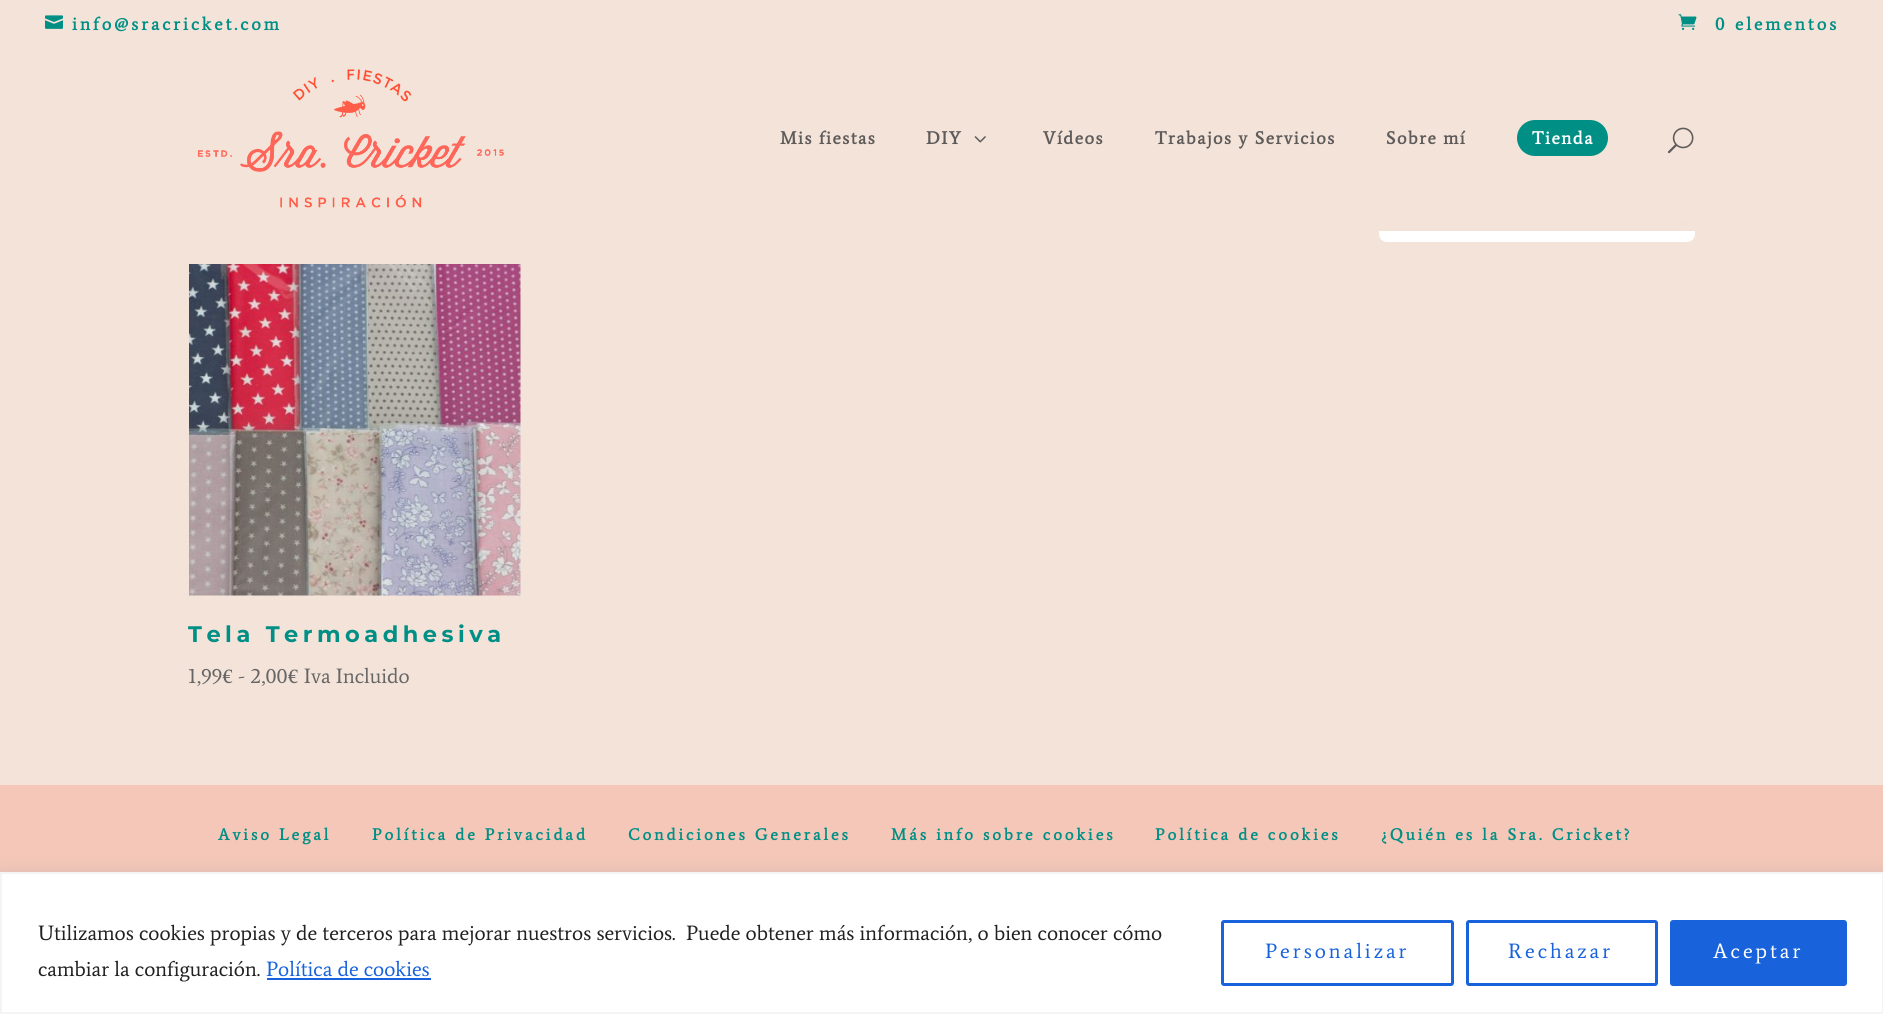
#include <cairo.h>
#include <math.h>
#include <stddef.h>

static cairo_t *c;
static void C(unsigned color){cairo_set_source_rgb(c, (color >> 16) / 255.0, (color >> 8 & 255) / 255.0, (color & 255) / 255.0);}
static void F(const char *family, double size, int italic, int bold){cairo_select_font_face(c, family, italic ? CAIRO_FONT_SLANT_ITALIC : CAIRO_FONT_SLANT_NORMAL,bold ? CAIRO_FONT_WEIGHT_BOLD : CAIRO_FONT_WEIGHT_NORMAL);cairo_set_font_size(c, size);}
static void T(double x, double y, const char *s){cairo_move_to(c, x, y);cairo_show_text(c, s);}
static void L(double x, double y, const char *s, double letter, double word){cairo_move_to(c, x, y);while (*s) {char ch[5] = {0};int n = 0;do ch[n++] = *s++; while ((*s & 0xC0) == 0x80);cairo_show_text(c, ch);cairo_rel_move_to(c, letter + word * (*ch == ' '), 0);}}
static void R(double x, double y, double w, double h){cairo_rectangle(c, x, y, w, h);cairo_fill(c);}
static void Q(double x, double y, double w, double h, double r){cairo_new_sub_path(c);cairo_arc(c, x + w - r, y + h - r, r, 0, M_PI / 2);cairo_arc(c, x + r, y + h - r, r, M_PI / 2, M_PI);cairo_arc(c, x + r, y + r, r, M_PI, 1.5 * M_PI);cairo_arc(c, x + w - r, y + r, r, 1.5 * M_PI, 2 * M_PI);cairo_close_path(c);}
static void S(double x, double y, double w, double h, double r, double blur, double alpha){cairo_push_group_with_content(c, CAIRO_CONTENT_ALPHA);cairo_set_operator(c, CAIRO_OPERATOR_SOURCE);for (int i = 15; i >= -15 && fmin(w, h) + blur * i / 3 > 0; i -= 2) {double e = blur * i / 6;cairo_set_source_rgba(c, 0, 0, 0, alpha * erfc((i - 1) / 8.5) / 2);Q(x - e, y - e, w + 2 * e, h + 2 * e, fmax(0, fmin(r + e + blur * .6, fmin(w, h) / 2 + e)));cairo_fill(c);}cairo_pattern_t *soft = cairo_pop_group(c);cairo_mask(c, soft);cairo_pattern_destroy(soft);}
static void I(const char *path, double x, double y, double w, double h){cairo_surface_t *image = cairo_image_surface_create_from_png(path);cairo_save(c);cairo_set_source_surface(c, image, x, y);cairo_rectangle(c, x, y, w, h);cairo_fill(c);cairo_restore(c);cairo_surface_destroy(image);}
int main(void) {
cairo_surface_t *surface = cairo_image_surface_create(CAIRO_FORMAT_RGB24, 1883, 1014);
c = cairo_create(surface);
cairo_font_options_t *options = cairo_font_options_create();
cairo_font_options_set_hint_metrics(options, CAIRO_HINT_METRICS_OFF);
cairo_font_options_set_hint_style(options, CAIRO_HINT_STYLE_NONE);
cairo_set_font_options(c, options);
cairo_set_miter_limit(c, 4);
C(0xf4e3d9);
cairo_paint(c);
I("1.png",45,15,18,14);
F("Average",18,0,1);
C(0x008f85);
L(72,30,"info@sracricket.com",3,0);
I("2.png",1678,14,19,16);
L(1715,30,"0 elementos",3,0);
C(0xffffff);
Q(1379,201,316,41,8);
cairo_fill(c);
cairo_new_path(c);
cairo_move_to(c,1677.5,218);
cairo_line_to(c,1683.5,224);
cairo_line_to(c,1689.5,218);
C(0x666666);
cairo_set_line_width(c,3);
cairo_stroke(c);
cairo_set_source_rgba(c,0.957,0.89,0.851,0.99);
R(1379,201,316,30);
I("3.png",197,69,307,139);
C(0x5e5b5b);
L(780,144,"Mis fiestas",1.5,0);
L(926,144,"DIY",1.5,0);
I("4.png",974,136,12,7);
L(1043,144,"Vídeos",1.5,0);
L(1155,144,"Trabajos y Servicios",1.5,0);
L(1386,144,"Sobre mí",1.5,0);
C(0x008f85);
Q(1517,120,91,36,18);
cairo_fill(c);
C(0xffffff);
L(1532,144,"Tienda",1.5,0);
I("5.png",1667,127,27,27);
I("6.png",189,264,332,332);
F("Montserrat Thin",22.5,0,0);
C(0x008f85);
L(188,642,"Tela Termoadhesiva",4.5,0);
F("Average",21,0,0);
C(0x666666);
T(188,683,"1,99€ - 2,00€ Iva Incluido");
C(0xf5c7b8);
R(0,785,1883,87);
F("Average",16.5,0,1);
C(0x008f85);
L(218,840,"Aviso Legal",3,0);
L(372,840,"Política de Privacidad",3,0);
L(628,840,"Condiciones Generales",3,0);
L(891,840,"Más info sobre cookies",3,0);
L(1155,840,"Política de cookies",3,0);
L(1381,840,"¿Quién es la Sra. Cricket?",3,0);
C(0xacabab);
S(0,870,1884,143,0,7.5,.3);
C(0xffffff);
cairo_rectangle(c,1,873,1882,140);
cairo_fill_preserve(c);
C(0xf4f4f4);
cairo_set_line_width(c,2);
cairo_stroke(c);
F("Average",21,0,0);
C(0x212121);
T(38,940,"Utilizamos cookies propias y de terceros para mejorar nuestros servicios.  Puede obtener más información, o bien conocer cómo");
T(38,976,"cambiar la configuración.");
C(0x1863dc);
T(266,976,"Política de cookies");
R(267,978,164,2);
Q(1222.5,921.5,230,63,1.5);
cairo_set_line_width(c,3);
cairo_stroke(c);
L(1265,958,"Personalizar",3,0);
Q(1467.5,921.5,189,63,1.5);
cairo_stroke(c);
L(1508,958,"Rechazar",3,0);
Q(1671.5,921.5,174,63,1.5);
cairo_fill_preserve(c);
cairo_stroke(c);
C(0xffffff);
L(1713,958,"Aceptar",3,0);
cairo_surface_write_to_png(surface, "o.png");
cairo_font_options_destroy(options);
cairo_destroy(c);
cairo_surface_destroy(surface);
return 0;
}
